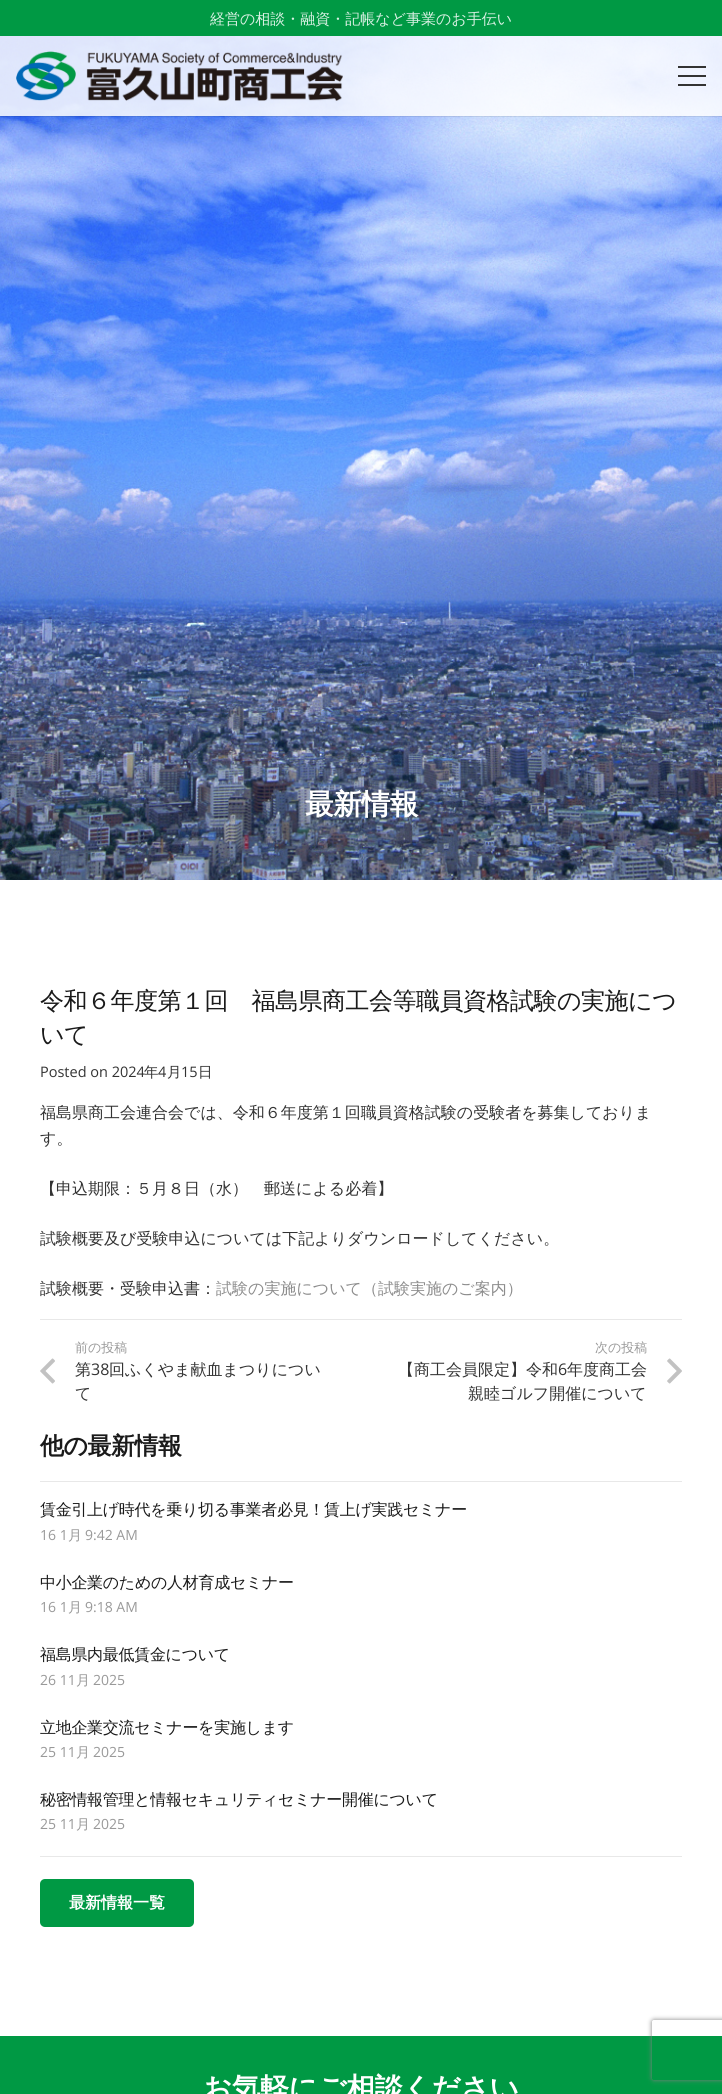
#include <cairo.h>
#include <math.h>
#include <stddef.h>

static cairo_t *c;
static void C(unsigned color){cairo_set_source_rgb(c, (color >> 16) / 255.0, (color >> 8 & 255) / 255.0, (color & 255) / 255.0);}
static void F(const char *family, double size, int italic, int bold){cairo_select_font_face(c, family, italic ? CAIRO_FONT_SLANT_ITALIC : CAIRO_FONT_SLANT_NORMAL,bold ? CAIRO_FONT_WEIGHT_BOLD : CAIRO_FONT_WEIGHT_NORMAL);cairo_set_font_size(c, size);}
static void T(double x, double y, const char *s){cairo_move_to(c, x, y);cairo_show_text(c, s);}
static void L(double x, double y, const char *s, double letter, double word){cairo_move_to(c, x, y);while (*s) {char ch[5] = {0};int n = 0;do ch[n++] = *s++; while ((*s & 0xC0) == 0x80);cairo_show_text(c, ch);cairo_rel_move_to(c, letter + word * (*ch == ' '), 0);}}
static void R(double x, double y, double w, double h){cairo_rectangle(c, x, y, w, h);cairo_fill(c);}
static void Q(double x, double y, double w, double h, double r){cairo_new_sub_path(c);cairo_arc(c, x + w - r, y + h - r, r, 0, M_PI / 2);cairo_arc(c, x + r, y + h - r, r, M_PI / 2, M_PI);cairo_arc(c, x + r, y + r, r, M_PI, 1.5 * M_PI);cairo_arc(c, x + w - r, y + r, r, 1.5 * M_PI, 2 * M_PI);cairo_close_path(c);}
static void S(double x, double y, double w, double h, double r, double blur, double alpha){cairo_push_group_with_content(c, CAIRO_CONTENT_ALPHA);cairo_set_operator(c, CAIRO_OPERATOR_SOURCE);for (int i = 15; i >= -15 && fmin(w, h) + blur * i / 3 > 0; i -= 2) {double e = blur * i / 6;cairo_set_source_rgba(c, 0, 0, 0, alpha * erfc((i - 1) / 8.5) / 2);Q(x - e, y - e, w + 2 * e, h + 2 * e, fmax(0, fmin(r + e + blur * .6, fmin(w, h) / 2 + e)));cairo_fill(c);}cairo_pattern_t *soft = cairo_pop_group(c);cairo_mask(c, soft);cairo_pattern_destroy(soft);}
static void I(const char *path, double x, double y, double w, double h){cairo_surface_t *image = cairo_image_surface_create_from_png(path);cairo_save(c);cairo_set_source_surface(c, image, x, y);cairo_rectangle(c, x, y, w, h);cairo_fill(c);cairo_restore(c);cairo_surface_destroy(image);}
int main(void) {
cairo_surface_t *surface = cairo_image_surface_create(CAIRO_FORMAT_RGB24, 722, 2094);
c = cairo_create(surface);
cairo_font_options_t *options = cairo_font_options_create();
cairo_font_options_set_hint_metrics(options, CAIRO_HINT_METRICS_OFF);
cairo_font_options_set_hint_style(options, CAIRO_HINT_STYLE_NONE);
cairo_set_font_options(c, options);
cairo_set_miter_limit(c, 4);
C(0xffffff);
cairo_paint(c);
C(0x009944);
R(0,0,722,36);
F("WenQuanYi Zen Hei Medium",15,0,0);
C(0xd9f0e3);
T(210,24,"経営の相談・融資・記帳など事業のお手伝い");
I("2.png",0,36,722,844);
cairo_set_source_rgba(c,0,0,0,0.08);
R(0,116,722,1);
cairo_set_source_rgba(c,1,1,1,0.85);
R(0,36,722,80);
I("1.png",16,51,327,50);
C(0x333333);
R(678,75,28,2);
R(678,66,28,2);
R(678,84,28,2);
F("WenQuanYi Zen Hei",28.75,0,1);
C(0xffffff);
L(305,814,"最新情報",-.5,0);
F("WenQuanYi Zen Hei Medium",24,0,0);
C(0x1a1a1a);
L(40,1009,"令和６年度第１回　福島県商工会等職員資格試験の実施につ",-.5,0);
L(40,1043,"いて",-.5,0);
F("Open Sans",14.5,0,0);
C(0x333333);
T(40,1077,"Posted on 2024");
F("WenQuanYi Zen Hei Medium",14.5,0,0);
T(144,1077,"年");
F("Open Sans",14.5,0,0);
T(158,1077,"4");
F("WenQuanYi Zen Hei Medium",14.5,0,0);
T(167,1077,"月");
F("Open Sans",14.5,0,0);
T(181,1077,"15");
F("WenQuanYi Zen Hei Medium",14.5,0,0);
T(198,1077,"日");
F("WenQuanYi Zen Hei Medium",16,0,0);
T(40,1118,"福島県商工会連合会では、令和６年度第１回職員資格試験の受験者を募集しておりま");
T(40,1144,"す。");
T(40,1194,"【申込期限：５月８日（水）　郵送による必着】");
T(40,1244,"試験概要及び受験申込については下記よりダウンロードしてください。");
T(40,1294,"試験概要・受験申込書：");
C(0x8c8c8c);
T(216,1294,"試験の実施について（試験実施のご案内）");
C(0xe8e8e8);
R(40,1319,642,1);
F("WenQuanYi Zen Hei Medium",13,0,0);
C(0x999999);
T(75,1352,"前の投稿");
I("3.png",40,1358,15,26);
F("WenQuanYi Zen Hei Medium",16,0,0);
C(0x333333);
T(75,1375,"第");
F("Open Sans",16,0,0);
T(91,1375,"38");
F("WenQuanYi Zen Hei Medium",16,0,0);
T(109,1375,"回ふくやま献血まつりについ");
T(75,1399,"て");
F("WenQuanYi Zen Hei Medium",13,0,0);
C(0x999999);
T(595,1352,"次の投稿");
F("WenQuanYi Zen Hei Medium",16,0,0);
C(0x333333);
T(398,1375,"【商工会員限定】令和");
F("Open Sans",16,0,0);
T(558,1375,"6");
F("WenQuanYi Zen Hei Medium",16,0,0);
T(567,1375,"年度商工会");
T(468,1399,"親睦ゴルフ開催について");
I("4.png",667,1358,15,26);
F("WenQuanYi Zen Hei",24,0,1);
C(0x1a1a1a);
L(40,1454,"他の最新情報",-.5,0);
C(0xe8e8e8);
R(40,1481,642,1);
F("WenQuanYi Zen Hei Medium",16,0,0);
C(0x1a1a1a);
L(40,1515,"賃金引上げ時代を乗り切る事業者必見！賃上げ実践セミナー",-.3,0);
F("Open Sans",14,0,0);
C(0x999999);
T(40,1540,"16 1");
F("WenQuanYi Zen Hei Medium",14,0,0);
T(68,1540,"月");
F("Open Sans",14,0,0);
T(85,1540,"9:42 AM");
F("WenQuanYi Zen Hei Medium",16,0,0);
C(0x1a1a1a);
L(40,1588,"中小企業のための人材育成セミナー",-.3,0);
F("Open Sans",14,0,0);
C(0x999999);
T(40,1612,"16 1");
F("WenQuanYi Zen Hei Medium",14,0,0);
T(68,1612,"月");
F("Open Sans",14,0,0);
T(85,1612,"9:18 AM");
F("WenQuanYi Zen Hei Medium",16,0,0);
C(0x1a1a1a);
L(40,1660,"福島県内最低賃金について",-.3,0);
F("Open Sans",14,0,0);
C(0x999999);
T(40,1685,"26 11");
F("WenQuanYi Zen Hei Medium",14,0,0);
T(76,1685,"月");
F("Open Sans",14,0,0);
T(93,1685,"2025");
F("WenQuanYi Zen Hei Medium",16,0,0);
C(0x1a1a1a);
L(40,1733,"立地企業交流セミナーを実施します",-.3,0);
F("Open Sans",14,0,0);
C(0x999999);
T(40,1757,"25 11");
F("WenQuanYi Zen Hei Medium",14,0,0);
T(76,1757,"月");
F("Open Sans",14,0,0);
T(93,1757,"2025");
F("WenQuanYi Zen Hei Medium",16,0,0);
C(0x1a1a1a);
L(40,1805,"秘密情報管理と情報セキュリティセミナー開催について",-.3,0);
F("Open Sans",14,0,0);
C(0x999999);
T(40,1829,"25 11");
F("WenQuanYi Zen Hei Medium",14,0,0);
T(76,1829,"月");
F("Open Sans",14,0,0);
T(93,1829,"2025");
C(0xe8e8e8);
R(40,1856,642,1);
C(0x009944);
Q(40,1879,154,48,5);
cairo_fill(c);
F("WenQuanYi Zen Hei",16,0,1);
C(0xffffff);
T(69,1908,"最新情報一覧");
C(0x009944);
R(0,2036,722,58);
F("WenQuanYi Zen Hei",28.75,0,1);
C(0xffffff);
L(203,2098,"お気軽にご相談ください",-.5,0);
cairo_save(c);
cairo_set_fill_rule(c,CAIRO_FILL_RULE_EVEN_ODD);
cairo_new_path(c);
cairo_move_to(c,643,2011);
cairo_line_to(c,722,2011);
cairo_line_to(c,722,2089);
cairo_line_to(c,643,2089);
cairo_close_path(c);
cairo_move_to(c,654,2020);
cairo_line_to(c,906,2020);
cairo_curve_to(c,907,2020,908,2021,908,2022);
cairo_line_to(c,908,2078);
cairo_curve_to(c,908,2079,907,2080,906,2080);
cairo_line_to(c,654,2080);
cairo_curve_to(c,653,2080,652,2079,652,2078);
cairo_line_to(c,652,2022);
cairo_curve_to(c,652,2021,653,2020,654,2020);
cairo_close_path(c);
cairo_clip(c);
C(0x808080);
S(652,2020,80,60,2,2.5,1);
cairo_restore(c);
cairo_surface_write_to_png(surface, "o.png");
cairo_font_options_destroy(options);
cairo_destroy(c);
cairo_surface_destroy(surface);
return 0;
}
